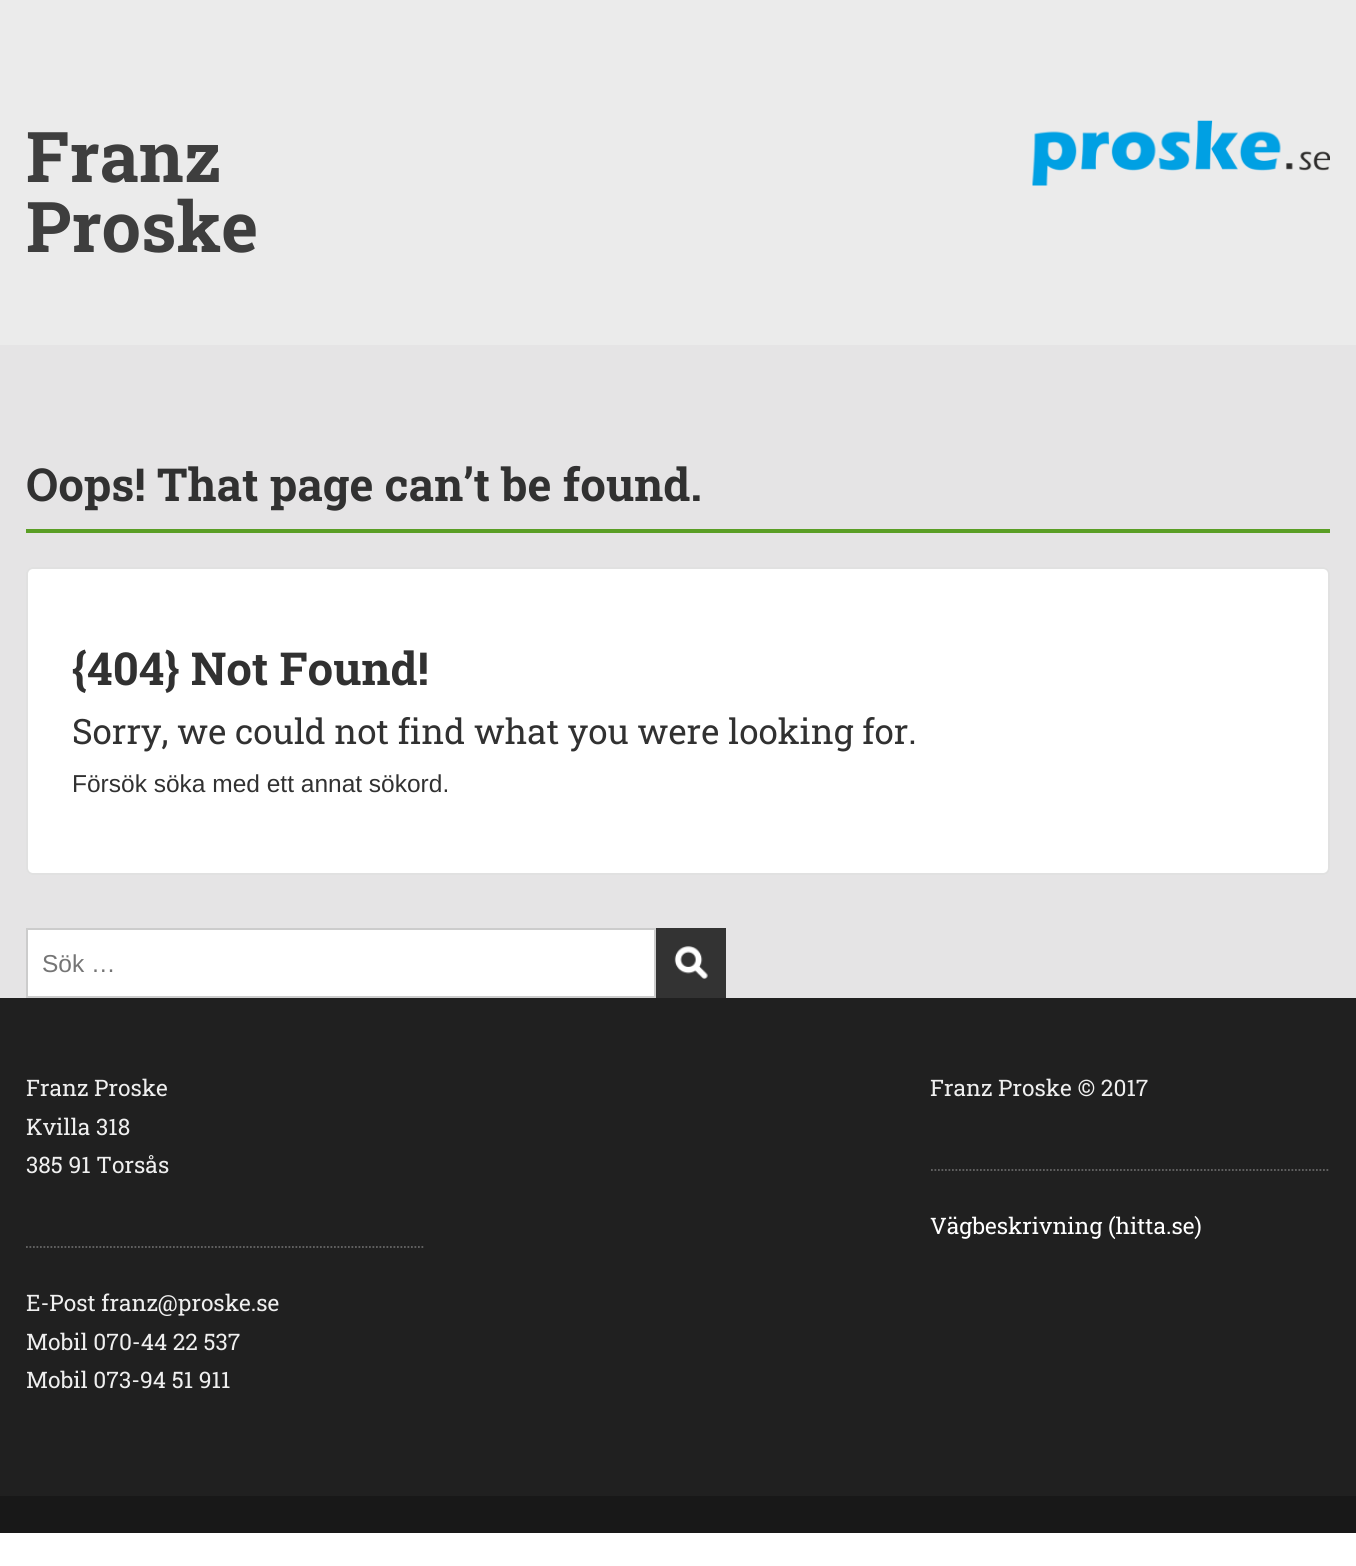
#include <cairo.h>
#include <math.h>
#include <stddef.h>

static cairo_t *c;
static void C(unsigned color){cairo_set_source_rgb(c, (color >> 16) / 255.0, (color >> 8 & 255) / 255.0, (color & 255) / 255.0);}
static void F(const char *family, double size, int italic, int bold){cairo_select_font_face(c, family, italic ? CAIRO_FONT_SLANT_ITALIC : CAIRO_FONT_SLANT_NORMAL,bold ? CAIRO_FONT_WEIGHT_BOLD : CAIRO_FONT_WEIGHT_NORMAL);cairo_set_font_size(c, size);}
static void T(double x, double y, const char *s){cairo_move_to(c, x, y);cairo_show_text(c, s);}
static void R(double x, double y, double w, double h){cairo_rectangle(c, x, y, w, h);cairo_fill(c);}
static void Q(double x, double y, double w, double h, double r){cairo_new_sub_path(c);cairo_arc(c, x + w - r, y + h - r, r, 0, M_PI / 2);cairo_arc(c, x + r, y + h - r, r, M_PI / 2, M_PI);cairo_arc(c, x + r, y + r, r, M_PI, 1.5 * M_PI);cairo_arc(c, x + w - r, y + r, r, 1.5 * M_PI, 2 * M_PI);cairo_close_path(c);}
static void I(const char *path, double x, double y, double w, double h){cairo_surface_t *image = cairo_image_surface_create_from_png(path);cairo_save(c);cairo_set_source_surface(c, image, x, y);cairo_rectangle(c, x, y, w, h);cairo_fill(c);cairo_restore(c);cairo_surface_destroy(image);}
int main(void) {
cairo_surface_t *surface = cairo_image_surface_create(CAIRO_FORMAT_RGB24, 1356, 1566);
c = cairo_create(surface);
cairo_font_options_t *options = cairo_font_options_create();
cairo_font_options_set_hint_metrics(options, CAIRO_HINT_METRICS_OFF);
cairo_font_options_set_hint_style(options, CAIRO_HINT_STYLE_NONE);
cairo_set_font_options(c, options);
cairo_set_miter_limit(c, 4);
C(0xffffff);
cairo_paint(c);
C(0xe5e4e5);
R(0,345,1356,653);
C(0xebebeb);
R(0,0,1356,345);
F("Roboto Slab",70,0,1);
C(0x3e3e3e);
T(26,182,"Franz");
T(26,252,"Proske");
I("1.png",1032,120,298,66);
C(0x5a9e25);
R(26,529,1304,4);
F("Roboto Slab",45.5,0,1);
C(0x313131);
T(26,501,"Oops! That page can’t be found.");
C(0xffffff);
Q(26,567,1304,308,7);
cairo_fill(c);
Q(27,568,1302,306,6);
cairo_set_source_rgba(c,0,0,0,0.12);
cairo_stroke(c);
C(0x313131);
T(72,685,"{404} Not Found!");
F("Roboto Slab",35,0,0);
T(72,744,"Sorry, we could not find what you were looking for.");
F("Liberation Sans",24.5,0,0);
T(72,792,"Försök söka med ett annat sökord.");
C(0xffffff);
cairo_rectangle(c,27,929,628,68);
cairo_fill_preserve(c);
C(0xcccccc);
cairo_stroke(c);
C(0x757575);
T(42,972,"Sök …");
C(0x333333);
R(656,928,70,70);
I("2.png",674,946,34,33);
C(0x202020);
R(0,998,1356,498);
cairo_new_path(c);
cairo_move_to(c,26,1247);
cairo_line_to(c,425,1247);
C(0x666666);
cairo_set_line_width(c,1.8);
cairo_set_dash(c,(double[]){1.75,1.75},2,0);
cairo_stroke(c);
F("Roboto Slab",22.75,0,0);
C(0xefefef);
T(26,1096,"Franz Proske");
T(26,1135,"Kvilla 318");
T(26,1173,"385 91 Torsås");
T(26,1311,"E-Post franz@proske.se");
T(26,1350,"Mobil 070-44 22 537");
T(26,1388,"Mobil 073-94 51 911");
cairo_new_path(c);
cairo_move_to(c,931,1170);
cairo_line_to(c,1330,1170);
C(0x666666);
cairo_stroke(c);
C(0xefefef);
T(930,1096,"Franz Proske © 2017");
C(0xffffff);
T(930,1234,"Vägbeskrivning (hitta.se)");
C(0x181818);
R(0,1496,1356,37);
cairo_surface_write_to_png(surface, "o.png");
cairo_font_options_destroy(options);
cairo_destroy(c);
cairo_surface_destroy(surface);
return 0;
}
